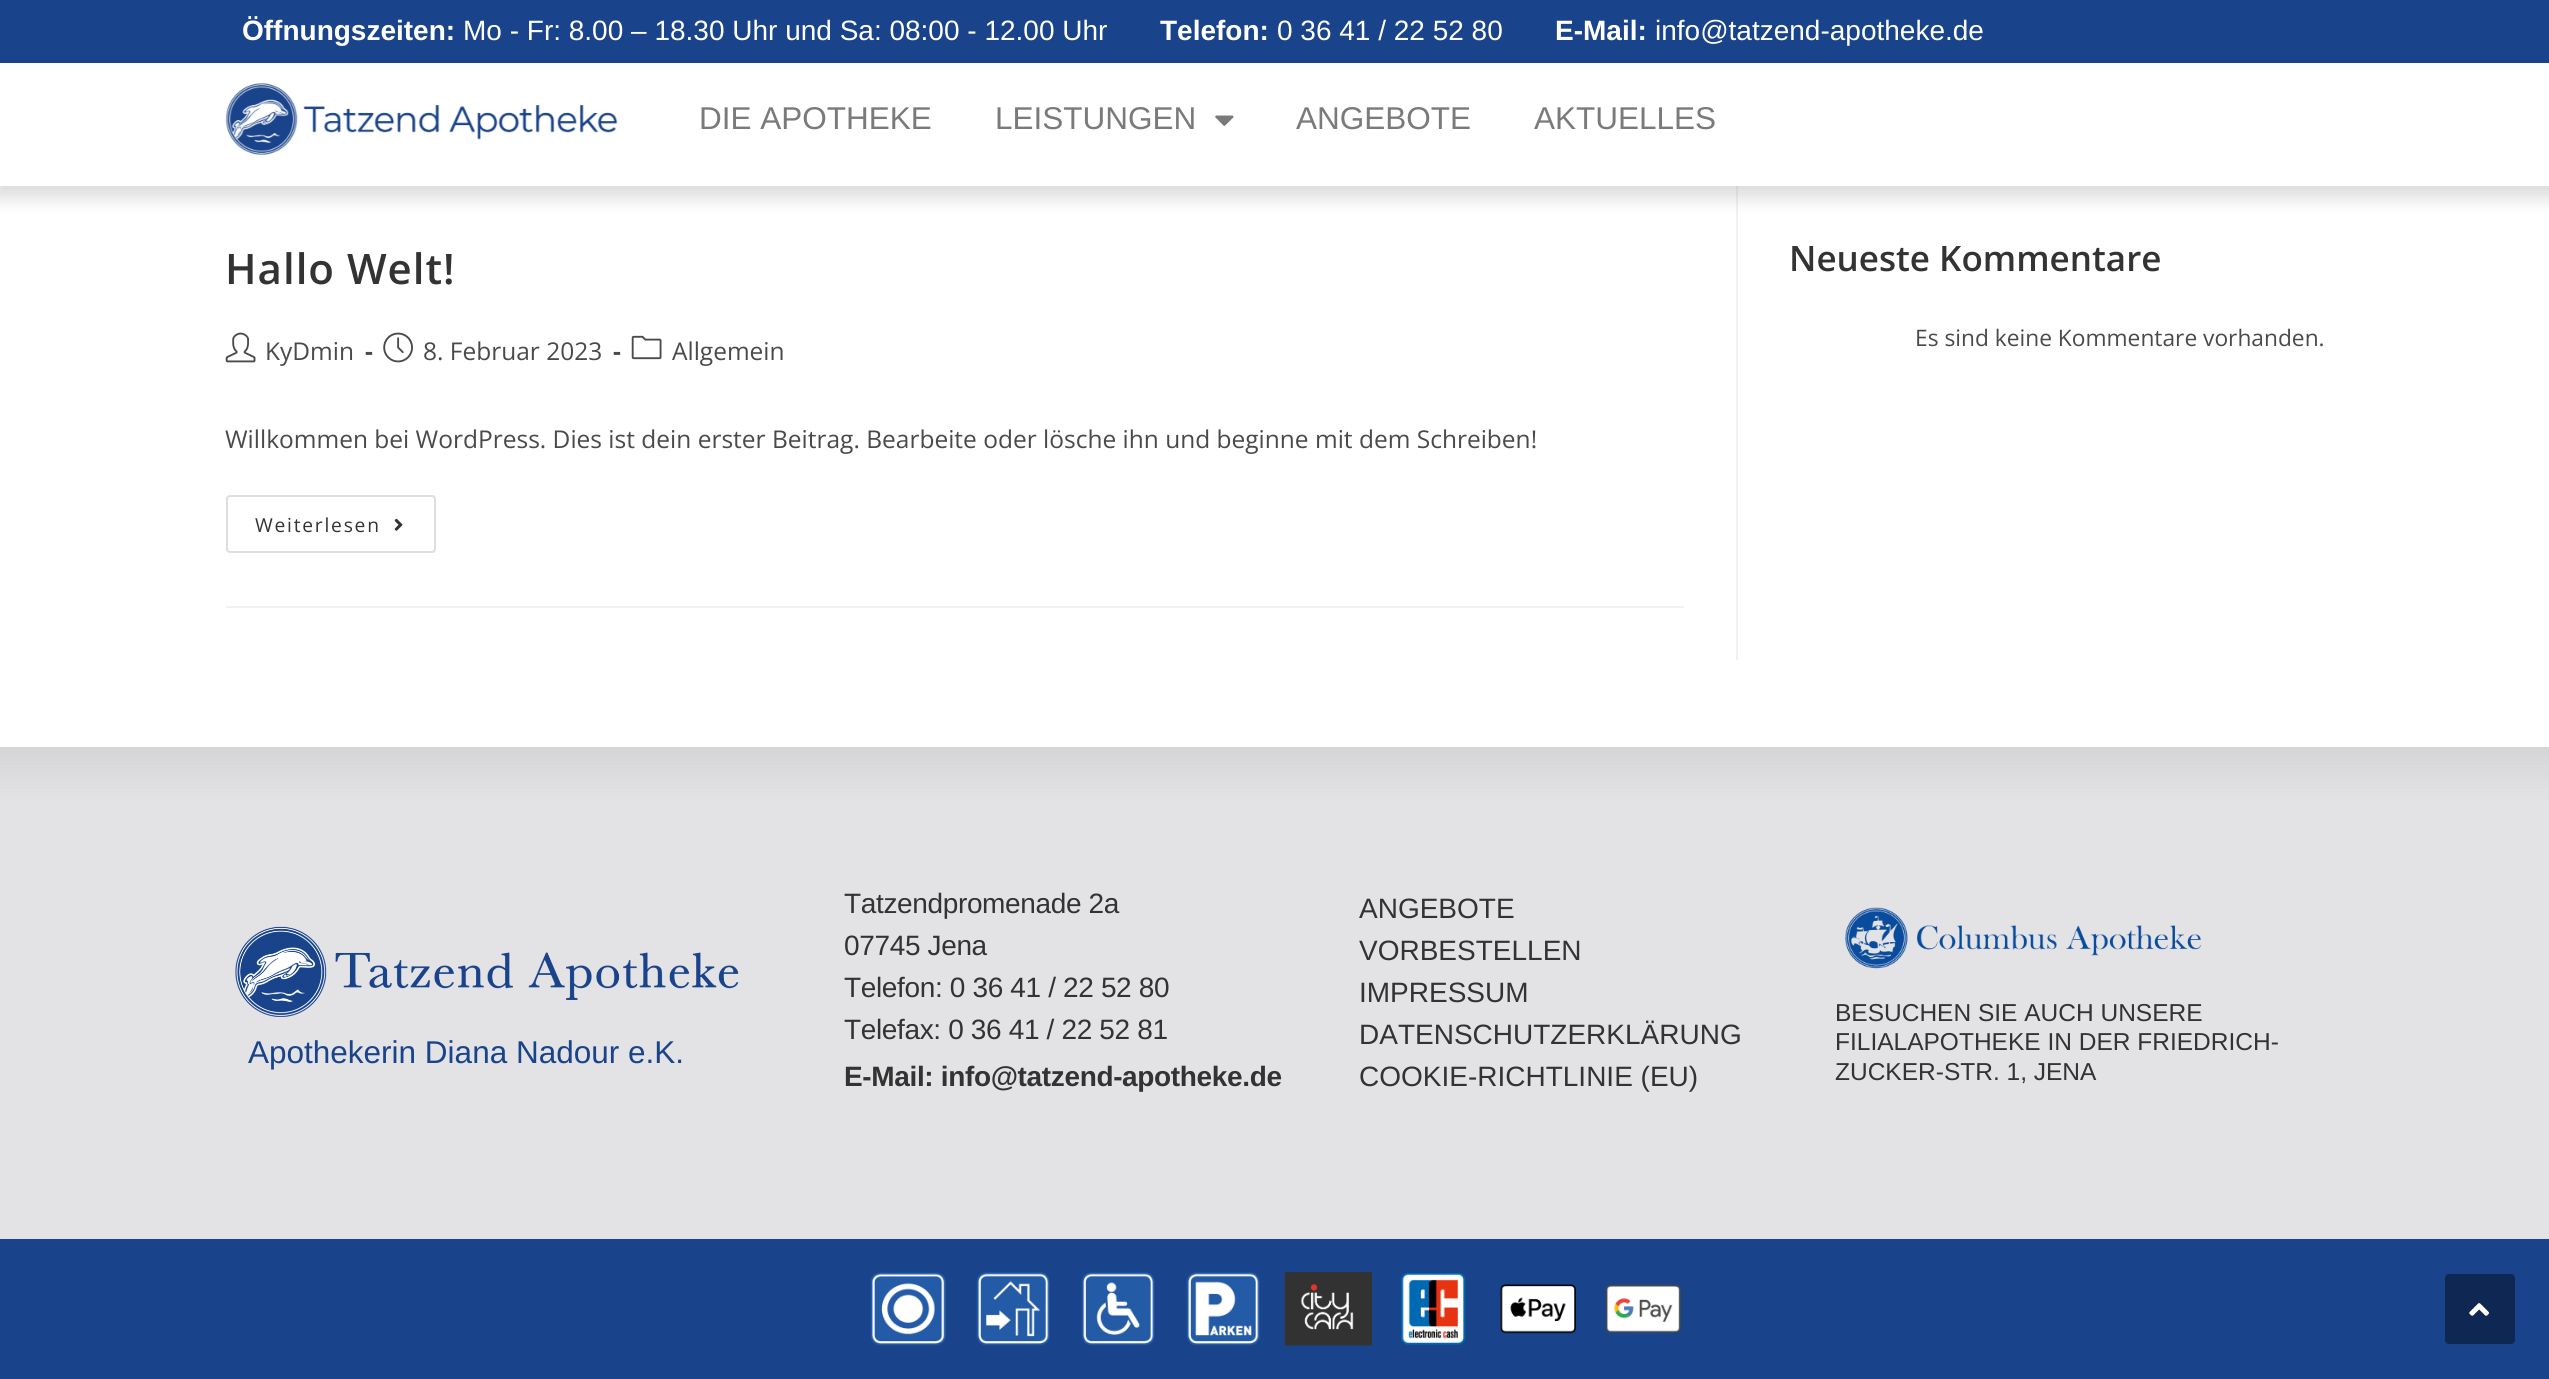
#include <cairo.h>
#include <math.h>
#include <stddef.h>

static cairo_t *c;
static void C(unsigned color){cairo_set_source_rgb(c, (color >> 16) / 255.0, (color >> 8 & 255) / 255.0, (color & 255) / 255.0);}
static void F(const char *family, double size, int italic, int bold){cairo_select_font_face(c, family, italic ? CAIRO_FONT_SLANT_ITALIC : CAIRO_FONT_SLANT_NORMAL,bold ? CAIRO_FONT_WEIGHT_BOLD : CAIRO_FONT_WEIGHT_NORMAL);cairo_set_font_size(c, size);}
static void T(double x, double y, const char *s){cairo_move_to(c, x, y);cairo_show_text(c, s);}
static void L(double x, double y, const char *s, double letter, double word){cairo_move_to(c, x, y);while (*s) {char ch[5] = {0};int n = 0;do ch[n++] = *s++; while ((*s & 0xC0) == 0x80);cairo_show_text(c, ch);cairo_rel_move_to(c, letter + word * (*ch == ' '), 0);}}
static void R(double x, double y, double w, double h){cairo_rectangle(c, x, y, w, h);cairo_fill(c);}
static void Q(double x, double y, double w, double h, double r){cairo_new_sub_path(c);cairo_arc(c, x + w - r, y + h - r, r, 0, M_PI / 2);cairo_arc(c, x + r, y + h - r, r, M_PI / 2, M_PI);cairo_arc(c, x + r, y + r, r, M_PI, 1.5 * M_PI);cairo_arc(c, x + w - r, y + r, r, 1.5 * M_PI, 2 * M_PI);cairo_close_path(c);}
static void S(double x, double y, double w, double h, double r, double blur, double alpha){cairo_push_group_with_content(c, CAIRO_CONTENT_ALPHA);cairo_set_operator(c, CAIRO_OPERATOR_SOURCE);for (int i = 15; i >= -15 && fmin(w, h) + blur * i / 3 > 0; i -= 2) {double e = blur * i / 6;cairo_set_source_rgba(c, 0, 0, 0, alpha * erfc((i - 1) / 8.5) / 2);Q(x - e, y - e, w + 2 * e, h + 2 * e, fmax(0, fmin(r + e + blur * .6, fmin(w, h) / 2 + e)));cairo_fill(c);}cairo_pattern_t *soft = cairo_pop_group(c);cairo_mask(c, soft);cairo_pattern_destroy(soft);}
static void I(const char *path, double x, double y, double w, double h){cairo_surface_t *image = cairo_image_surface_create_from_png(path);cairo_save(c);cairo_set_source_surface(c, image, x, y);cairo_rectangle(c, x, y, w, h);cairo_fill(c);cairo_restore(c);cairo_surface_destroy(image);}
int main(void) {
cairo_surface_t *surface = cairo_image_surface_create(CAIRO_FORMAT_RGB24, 2549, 1379);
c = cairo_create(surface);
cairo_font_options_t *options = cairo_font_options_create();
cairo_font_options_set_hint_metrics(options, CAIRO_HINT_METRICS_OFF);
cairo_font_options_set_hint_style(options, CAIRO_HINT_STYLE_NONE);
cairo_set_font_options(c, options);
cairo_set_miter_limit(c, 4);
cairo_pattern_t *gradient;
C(0xffffff);
cairo_paint(c);
C(0xf1f1f1);
R(1736,186,2,474);
C(0x000000);
S(-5,47,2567,151,0,9,.14);
C(0x19438a);
R(0,0,2549,63);
F("Liberation Sans",28,0,1);
C(0xffffff);
T(242,40,"Öffnungszeiten:");
F("Liberation Sans",28,0,0);
T(463,40,"Mo - Fr: 8.00 – 18.30 Uhr und Sa: 08:00 - 12.00 Uhr");
F("Liberation Sans",28,0,1);
T(1160,40,"Telefon:");
F("Liberation Sans",28,0,0);
T(1277,40,"0 36 41 / 22 52 80");
F("Liberation Sans",28,0,1);
T(1555,40,"E-Mail:");
F("Liberation Sans",28,0,0);
T(1655,40,"info@tatzend-apotheke.de");
R(0,63,2549,123);
I("1.png",225,83,393,72);
F("Liberation Sans",31.5,0,0);
C(0x7a7a7a);
T(699,129,"DIE APOTHEKE");
T(995,129,"LEISTUNGEN");
I("2.png",1215,115,19,11);
T(1296,129,"ANGEBOTE");
T(1534,129,"AKTUELLES");
C(0xf1f1f1);
R(226,606,1458,2);
F("Open Sans SemiBold",42,0,0);
C(0x333333);
L(225,284,"Hallo Welt!",1,0);
I("3.png",225,332,31,31);
F("Open Sans",24.5,0,0);
C(0x4a4a4a);
T(265,360,"KyDmin");
F("Open Sans",24.5,0,1);
T(365,360,"-");
I("4.png",383,332,30,31);
F("Open Sans",24.5,0,0);
T(423,360,"8. Februar 2023");
F("Open Sans",24.5,0,1);
T(613,360,"-");
I("5.png",631,335,31,25);
F("Open Sans",24.5,0,0);
T(672,360,"Allgemein");
T(225,448,"Willkommen bei WordPress. Dies ist dein erster Beitrag. Bearbeite oder lösche ihn und beginne mit dem Schreiben!");
Q(227,496,208,56,3);
C(0xdddddd);
cairo_stroke(c);
F("Open Sans",19.25,0,0);
C(0x333333);
L(255,532,"Weiterlesen",1.75,0);
I("6.png",394,518,9,13);
F("Open Sans SemiBold",35,0,0);
T(1789,271,"Neueste Kommentare");
F("Open Sans",22.75,0,0);
C(0x4a4a4a);
T(1915,346,"Es sind keine Kommentare vorhanden.");
gradient = cairo_pattern_create_linear(1275,747,1275,1239);
cairo_pattern_add_color_stop_rgba(gradient,0,0.835,0.835,0.843,1);
cairo_pattern_add_color_stop_rgba(gradient,.11,0.89,0.886,0.898,1);
cairo_set_source(c,gradient);
cairo_pattern_destroy(gradient);
R(0,747,2549,492);
I("7.png",235,926,504,91);
F("Liberation Sans",31.5,0,0);
C(0x19438a);
T(248,1063,"Apothekerin Diana Nadour e.K.");
F("Liberation Sans",28,0,0);
C(0x333333);
L(844,913,"Tatzendpromenade 2a",-.35,0);
L(844,955,"07745 Jena",-.35,0);
L(844,997,"Telefon: 0 36 41 / 22 52 80",-.35,0);
L(844,1039,"Telefax: 0 36 41 / 22 52 81",-.35,0);
F("Liberation Sans",28,0,1);
L(844,1086,"E-Mail: info@tatzend-apotheke.de",-.35,0);
F("Liberation Sans",28,0,0);
T(1359,918,"ANGEBOTE");
T(1359,960,"VORBESTELLEN");
T(1359,1002,"IMPRESSUM");
T(1359,1044,"DATENSCHUTZERKLÄRUNG");
T(1359,1086,"COOKIE-RICHTLINIE (EU)");
I("8.png",1845,907,356,62);
F("Liberation Sans",24.5,0,0);
T(1835,1021,"BESUCHEN SIE AUCH UNSERE");
T(1835,1050,"FILIALAPOTHEKE IN DER FRIEDRICH-");
T(1835,1080,"ZUCKER-STR. 1, JENA");
C(0x19438a);
R(0,1239,2549,140);
I("9.png",870,1272,76,74);
I("10.png",976,1272,74,74);
I("11.png",1081,1272,74,74);
I("12.png",1186,1272,74,74);
I("13.png",1284,1272,88,74);
I("14.png",1401,1273,65,72);
I("15.png",1500,1284,76,50);
I("16.png",1605,1284,76,50);
C(0x0f2853);
Q(2445,1274,70,70,4);
cairo_fill(c);
I("17.png",2469,1303,20,13);
cairo_surface_write_to_png(surface, "o.png");
cairo_font_options_destroy(options);
cairo_destroy(c);
cairo_surface_destroy(surface);
return 0;
}
